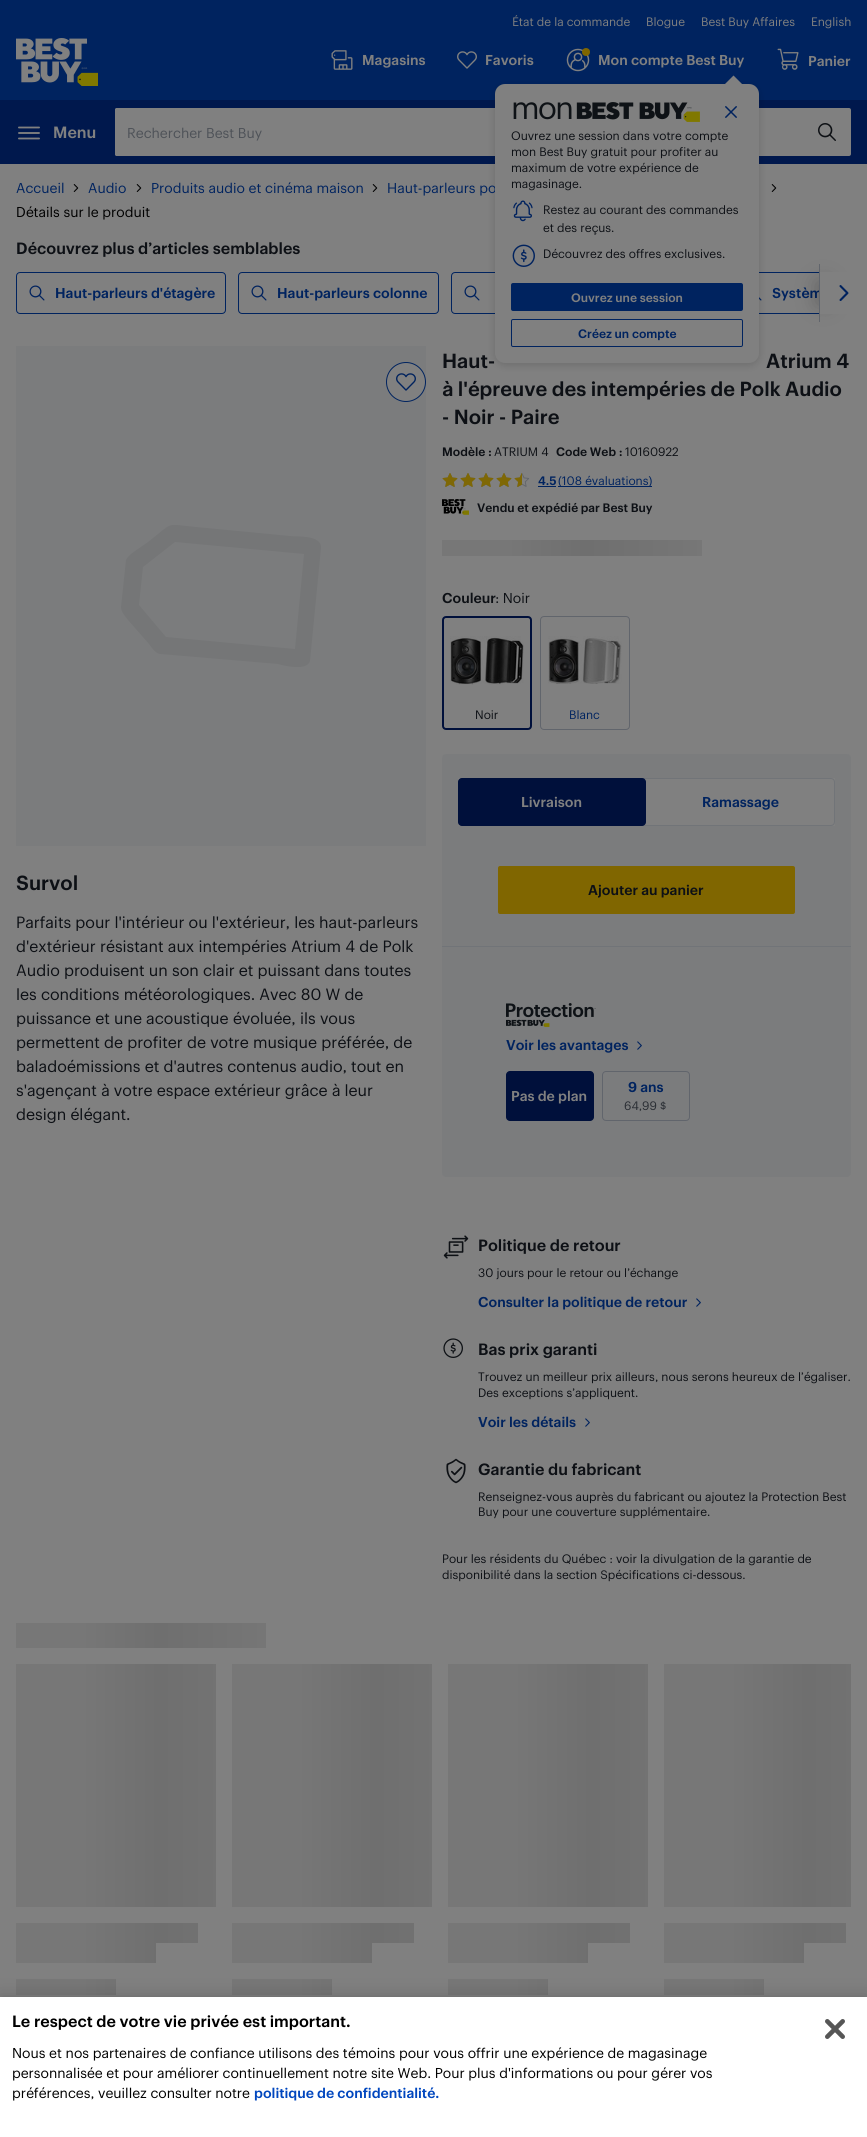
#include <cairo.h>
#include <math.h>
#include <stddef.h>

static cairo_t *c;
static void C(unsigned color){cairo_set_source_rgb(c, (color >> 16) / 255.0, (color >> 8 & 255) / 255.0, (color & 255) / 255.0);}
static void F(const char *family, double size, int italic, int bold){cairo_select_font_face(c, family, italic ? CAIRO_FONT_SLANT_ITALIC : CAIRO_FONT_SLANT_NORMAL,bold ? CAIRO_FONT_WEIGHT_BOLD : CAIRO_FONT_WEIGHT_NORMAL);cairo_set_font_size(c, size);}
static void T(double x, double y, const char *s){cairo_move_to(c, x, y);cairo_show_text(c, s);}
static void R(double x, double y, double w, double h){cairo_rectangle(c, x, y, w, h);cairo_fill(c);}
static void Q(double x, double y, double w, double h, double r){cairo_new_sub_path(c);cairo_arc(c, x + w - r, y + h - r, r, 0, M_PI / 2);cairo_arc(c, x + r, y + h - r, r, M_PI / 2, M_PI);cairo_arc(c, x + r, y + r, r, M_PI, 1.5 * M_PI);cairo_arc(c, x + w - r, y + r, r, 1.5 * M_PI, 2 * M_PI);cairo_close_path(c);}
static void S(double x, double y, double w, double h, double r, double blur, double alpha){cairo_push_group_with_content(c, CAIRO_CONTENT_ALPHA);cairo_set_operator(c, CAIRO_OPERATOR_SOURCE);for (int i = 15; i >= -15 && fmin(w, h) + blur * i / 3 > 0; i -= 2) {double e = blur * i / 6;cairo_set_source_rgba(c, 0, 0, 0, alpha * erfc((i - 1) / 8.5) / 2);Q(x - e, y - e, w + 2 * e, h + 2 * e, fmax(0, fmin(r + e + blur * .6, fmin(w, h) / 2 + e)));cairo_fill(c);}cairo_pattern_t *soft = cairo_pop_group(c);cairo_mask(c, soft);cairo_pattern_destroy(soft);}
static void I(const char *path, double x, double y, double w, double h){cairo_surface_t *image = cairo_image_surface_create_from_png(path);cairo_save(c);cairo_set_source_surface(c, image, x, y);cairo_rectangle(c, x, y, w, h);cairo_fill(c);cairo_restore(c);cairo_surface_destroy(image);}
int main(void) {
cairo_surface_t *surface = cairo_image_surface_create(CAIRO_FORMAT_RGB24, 867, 2137);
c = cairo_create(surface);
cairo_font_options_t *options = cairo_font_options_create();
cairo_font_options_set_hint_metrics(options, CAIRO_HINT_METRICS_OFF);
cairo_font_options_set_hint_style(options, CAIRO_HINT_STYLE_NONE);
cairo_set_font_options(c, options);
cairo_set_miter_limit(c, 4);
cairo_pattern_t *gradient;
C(0x808080);
cairo_paint(c);
C(0x00235f);
R(0,0,867,100);
C(0x00184d);
R(0,100,867,64);
I("1.png",18,126,22,14);
F("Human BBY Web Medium",16,0,0);
C(0x808080);
T(53,138,"Menu");
Q(115,108,736,48,2);
cairo_fill(c);
Q(115,108,662,48,2);
cairo_fill(c);
F("Human BBY Web",14,0,0);
C(0x4e5258);
T(127,138,"Rechercher Best Buy");
I("2.png",818,123,18,18);
F("Human BBY Web",12,0,0);
C(0x808080);
T(512,26,"État de la commande");
T(646,26,"Blogue");
T(701,26,"Best Buy Affaires");
T(811,26,"English");
I("3.png",16,38,82,48);
I("4.png",331,50,22,20);
F("Human BBY Web Medium",14,0,0);
T(362,65,"Magasins");
I("5.png",457,51,20,18);
T(485,65,"Favoris");
I("6.png",566,48,24,24);
C(0x806600);
cairo_arc(c,586,52,4,0,2 * M_PI);
cairo_fill(c);
C(0x808080);
T(598,65,"Mon compte Best Buy");
I("12.png",771,184,6,8);
Q(451.5,272.5,269,41,3.5);
C(0x00235f);
cairo_set_line_width(c,1);
cairo_stroke(c);
cairo_rectangle(c,733.5,272.5,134,41);
cairo_stroke(c);
I("14.png",759,297,3,4);
C(0x000000);
S(495,86,264,279,10,4,.15);
F("Human BBY Web",14,0,0);
C(0x00235f);
T(387,193,"Haut-parleurs po");
C(0x808080);
Q(495,84,264,279,10);
cairo_fill(c);
cairo_new_path(c);
cairo_move_to(c,733.5,75.5);
cairo_line_to(c,742,84);
cairo_line_to(c,733.5,92.5);
cairo_line_to(c,725,84);
cairo_close_path(c);
cairo_fill(c);
I("7.png",513,102,187,20);
I("8.png",725,106,12,12);
F("Human BBY Web",12,0,0);
C(0x0d1015);
T(511,140,"Ouvrez une session dans votre compte");
T(511,156,"mon Best Buy gratuit pour profiter au");
T(511,172,"maximum de votre expérience de");
T(511,188,"magasinage.");
I("9.png",513,200,20,22);
T(543,214,"Restez au courant des commandes");
T(543,232,"et des reçus.");
I("10.png",512,244,23,23);
T(543,258,"Découvrez des offres exclusives.");
C(0x00235f);
Q(511,283,232,28,2);
cairo_fill(c);
F("Human BBY Web Medium",12,0,0);
C(0x808080);
T(571,302,"Ouvrez une session");
Q(511.5,319.5,231,27,1.5);
C(0x00235f);
cairo_stroke(c);
T(578,338,"Créez un compte");
I("11.png",777,48,22,22);
F("Human BBY Web Medium",14,0,0);
C(0x808080);
T(808,66,"Panier");
F("Human BBY Web",14,0,0);
C(0x00235f);
T(16,193,"Accueil");
I("12.png",73,184,6,8);
T(88,193,"Audio");
I("12.png",136,184,6,8);
T(151,193,"Produits audio et cinéma maison");
I("12.png",372,184,6,8);
C(0x000000);
T(16,217,"Détails sur le produit");
F("Human BBY Web Medium",16,0,0);
C(0x0d1015);
T(16,254,"Découvrez plus d’articles semblables");
Q(16.5,272.5,209,41,3.5);
C(0x00235f);
cairo_stroke(c);
I("13.png",29,285,16,16);
F("Human BBY Web Medium",14,0,0);
T(55,298,"Haut-parleurs d'étagère");
Q(238.5,272.5,200,41,3.5);
cairo_stroke(c);
I("13.png",251,285,16,16);
T(277,298,"Haut-parleurs colonne");
I("13.png",464,285,16,16);
T(772,298,"Systèm");
C(0x000000);
S(816,281,14,24,0,10,.2);
C(0x808080);
R(820,272,47,42);
C(0x61656c);
R(819,264,1,58);
I("15.png",839,285,10,16);
F("Human BBY Web Medium",20,0,0);
C(0x0d1015);
T(442,368,"Haut-");
T(766,368,"Atrium 4");
T(442,396,"à l'épreuve des intempéries de Polk Audio");
T(442,424,"- Noir - Paire");
F("Human BBY Web Medium",12,0,0);
T(442,456,"Modèle :");
F("Human BBY Web",12,0,0);
T(494,456,"ATRIUM 4");
F("Human BBY Web Medium",12,0,0);
T(556,456,"Code Web :");
F("Human BBY Web",12,0,0);
T(625,456,"10160922");
I("16.png",442,473,16,14);
I("17.png",442,473,16,14);
I("16.png",460,473,16,14);
I("17.png",460,473,16,14);
I("16.png",478,473,16,14);
I("17.png",478,473,16,14);
I("16.png",496,473,16,14);
I("17.png",496,473,16,14);
I("16.png",514,473,16,14);
I("18.png",514,473,8,14);
F("Human BBY Web Medium",12,0,0);
C(0x00235f);
T(538,485,"4.5");
R(538,486,18,1);
R(558,486,94,1);
F("Human BBY Web",12,0,0);
T(558,485,"(108 évaluations)");
I("19.png",442,499,27,16);
F("Human BBY Web Medium",12,0,0);
C(0x0d1015);
T(477,512,"Vendu et expédié par Best Buy");
C(0x7b7c7d);
R(16,346,410,500);
cairo_save(c);
cairo_rectangle(c,121,525,200,142);
cairo_clip(c);
C(0x757677);
cairo_new_path(c);
cairo_move_to(c,321,548);
cairo_curve_to(c,322,534,294,537,290,536);
cairo_line_to(c,196,527);
cairo_curve_to(c,164,524,175,521,148,542);
cairo_line_to(c,135,551);
cairo_curve_to(c,132,553,128,556,126,560);
cairo_line_to(c,121,607);
cairo_curve_to(c,121,612,125,616,128,620);
cairo_line_to(c,149,644);
cairo_curve_to(c,152,648,155,653,160,654);
cairo_line_to(c,278,664);
cairo_curve_to(c,281,665,307,672,310,661);
cairo_close_path(c);
cairo_move_to(c,304,554);
cairo_line_to(c,295,649);
cairo_line_to(c,166,637);
cairo_line_to(c,139,605);
cairo_line_to(c,143,567);
cairo_line_to(c,175,542);
cairo_close_path(c);
cairo_fill(c);
cairo_restore(c);
C(0x808080);
cairo_arc(c,406,382,19.5,0,2 * M_PI);
cairo_fill_preserve(c);
C(0x00235f);
cairo_stroke(c);
I("20.png",396,373,20,18);
F("Human BBY Web Medium",20,0,0);
C(0x0d1015);
T(16,890,"Survol");
F("Human BBY Web",16,0,0);
T(16,928,"Parfaits pour l'intérieur ou l'extérieur, les haut-parleurs");
T(16,952,"d'extérieur résistant aux intempéries Atrium 4 de Polk");
T(16,976,"Audio produisent un son clair et puissant dans toutes");
T(16,1000,"les conditions météorologiques. Avec 80 W de");
T(16,1024,"puissance et une acoustique évoluée, ils vous");
T(16,1048,"permettent de profiter de votre musique préférée, de");
T(16,1072,"baladoémissions et d'autres contenus audio, tout en");
T(16,1096,"s'agençant à votre espace extérieur grâce à leur");
T(16,1120,"design élégant.");
gradient = cairo_pattern_create_linear(442,592,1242,592);
cairo_pattern_add_color_stop_rgba(gradient,.08,0.467,0.467,0.467,1);
cairo_pattern_add_color_stop_rgba(gradient,.18,0.435,0.435,0.435,1);
cairo_pattern_add_color_stop_rgba(gradient,.33,0.467,0.467,0.467,1);
cairo_set_source(c,gradient);
cairo_pattern_destroy(gradient);
R(442,540,260,16);
F("Human BBY Web Medium",14,0,0);
C(0x0d1015);
T(442,603,"Couleur");
F("Human BBY Web",14,0,0);
T(495,603,": Noir");
Q(443,617,88,112,3);
C(0x00103b);
cairo_set_line_width(c,2);
cairo_stroke(c);
I("21.png",450,636,74,49);
F("Human BBY Web",12,0,0);
C(0x0d1015);
T(475,719,"Noir");
Q(540.5,616.5,89,113,3.5);
C(0x61656c);
cairo_set_line_width(c,1);
cairo_stroke(c);
I("22.png",548,636,74,48);
C(0x00235f);
T(569,719,"Blanc");
C(0x7b7c7d);
Q(442,754,409,423,4);
cairo_fill(c);
C(0x808080);
R(458,778,377,48);
Q(458.5,778.5,376,47,3.5);
C(0x717478);
cairo_stroke(c);
C(0x00103b);
Q(458,778,188,48,4);
cairo_fill(c);
F("Human BBY Web Medium",14,0,0);
C(0x808080);
T(521,807,"Livraison");
C(0x00235f);
T(702,807,"Ramassage");
C(0x806600);
Q(498,866,297,48,2);
cairo_fill(c);
C(0x0d1015);
T(588,895,"Ajouter au panier");
C(0x717478);
R(442,946,409,1);
I("23.png",506,1003,90,24);
C(0x00235f);
T(506,1050,"Voir les avantages");
I("24.png",637,1041,5,9);
C(0x00103b);
Q(506,1071,88,50,4);
cairo_fill(c);
C(0x808080);
T(511,1101,"Pas de plan");
Q(602.5,1071.5,87,49,3.5);
C(0x61656c);
cairo_stroke(c);
C(0x00235f);
T(628,1092,"9 ans");
F("Human BBY Web",12,0,0);
C(0x292d33);
T(624,1110,"64,99 $");
I("25.png",443,1235,26,24);
F("Human BBY Web Medium",16,0,0);
C(0x0d1015);
T(478,1251,"Politique de retour");
F("Human BBY Web",12,0,0);
T(478,1277,"30 jours pour le retour ou l’échange");
F("Human BBY Web Medium",14,0,0);
C(0x00235f);
T(478,1307,"Consulter la politique de retour");
I("26.png",696,1298,5,9);
I("27.png",443,1338,20,20);
F("Human BBY Web Medium",16,0,0);
C(0x0d1015);
T(478,1355,"Bas prix garanti");
F("Human BBY Web",12,0,0);
T(478,1381,"Trouvez un meilleur prix ailleurs, nous serons heureux de l’égaliser.");
T(478,1397,"Des exceptions s’appliquent.");
F("Human BBY Web Medium",14,0,0);
C(0x00235f);
T(478,1427,"Voir les détails");
I("26.png",585,1418,5,9);
I("28.png",446,1458,20,26);
F("Human BBY Web Medium",16,0,0);
C(0x0d1015);
T(478,1475,"Garantie du fabricant");
F("Human BBY Web",12,0,0);
T(478,1501,"Renseignez-vous auprès du fabricant ou ajoutez la Protection Best");
T(478,1516,"Buy pour une couverture supplémentaire.");
T(442,1563,"Pour les résidents du Québec : voir la divulgation de la garantie de");
T(442,1579,"disponibilité dans la section Spécifications ci-dessous.");
gradient = cairo_pattern_create_linear(16,1675,816,1675);
cairo_pattern_add_color_stop_rgba(gradient,.08,0.467,0.467,0.467,1);
cairo_pattern_add_color_stop_rgba(gradient,.18,0.435,0.435,0.435,1);
cairo_pattern_add_color_stop_rgba(gradient,.33,0.467,0.467,0.467,1);
cairo_set_source(c,gradient);
cairo_pattern_destroy(gradient);
R(16,1623,250,25);
gradient = cairo_pattern_create_linear(16,1716,816,1716);
cairo_pattern_add_color_stop_rgba(gradient,.08,0.467,0.467,0.467,1);
cairo_pattern_add_color_stop_rgba(gradient,.18,0.435,0.435,0.435,1);
cairo_pattern_add_color_stop_rgba(gradient,.33,0.467,0.467,0.467,1);
cairo_set_source(c,gradient);
cairo_pattern_destroy(gradient);
R(16,1664,200,243);
gradient = cairo_pattern_create_linear(16,1975,816,1975);
cairo_pattern_add_color_stop_rgba(gradient,.08,0.467,0.467,0.467,1);
cairo_pattern_add_color_stop_rgba(gradient,.18,0.435,0.435,0.435,1);
cairo_pattern_add_color_stop_rgba(gradient,.33,0.467,0.467,0.467,1);
cairo_set_source(c,gradient);
cairo_pattern_destroy(gradient);
R(16,1923,182,20);
gradient = cairo_pattern_create_linear(16,1995,816,1995);
cairo_pattern_add_color_stop_rgba(gradient,.08,0.467,0.467,0.467,1);
cairo_pattern_add_color_stop_rgba(gradient,.18,0.435,0.435,0.435,1);
cairo_pattern_add_color_stop_rgba(gradient,.33,0.467,0.467,0.467,1);
cairo_set_source(c,gradient);
cairo_pattern_destroy(gradient);
R(16,1943,140,20);
gradient = cairo_pattern_create_linear(16,2031,816,2031);
cairo_pattern_add_color_stop_rgba(gradient,.08,0.467,0.467,0.467,1);
cairo_pattern_add_color_stop_rgba(gradient,.18,0.435,0.435,0.435,1);
cairo_pattern_add_color_stop_rgba(gradient,.33,0.467,0.467,0.467,1);
cairo_set_source(c,gradient);
cairo_pattern_destroy(gradient);
R(16,1979,100,16);
gradient = cairo_pattern_create_linear(232,1716,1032,1716);
cairo_pattern_add_color_stop_rgba(gradient,.08,0.467,0.467,0.467,1);
cairo_pattern_add_color_stop_rgba(gradient,.18,0.435,0.435,0.435,1);
cairo_pattern_add_color_stop_rgba(gradient,.33,0.467,0.467,0.467,1);
cairo_set_source(c,gradient);
cairo_pattern_destroy(gradient);
R(232,1664,200,243);
gradient = cairo_pattern_create_linear(232,1975,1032,1975);
cairo_pattern_add_color_stop_rgba(gradient,.08,0.467,0.467,0.467,1);
cairo_pattern_add_color_stop_rgba(gradient,.18,0.435,0.435,0.435,1);
cairo_pattern_add_color_stop_rgba(gradient,.33,0.467,0.467,0.467,1);
cairo_set_source(c,gradient);
cairo_pattern_destroy(gradient);
R(232,1923,182,20);
gradient = cairo_pattern_create_linear(232,1995,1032,1995);
cairo_pattern_add_color_stop_rgba(gradient,.08,0.467,0.467,0.467,1);
cairo_pattern_add_color_stop_rgba(gradient,.18,0.435,0.435,0.435,1);
cairo_pattern_add_color_stop_rgba(gradient,.33,0.467,0.467,0.467,1);
cairo_set_source(c,gradient);
cairo_pattern_destroy(gradient);
R(232,1943,140,20);
gradient = cairo_pattern_create_linear(232,2031,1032,2031);
cairo_pattern_add_color_stop_rgba(gradient,.08,0.467,0.467,0.467,1);
cairo_pattern_add_color_stop_rgba(gradient,.18,0.435,0.435,0.435,1);
cairo_pattern_add_color_stop_rgba(gradient,.33,0.467,0.467,0.467,1);
cairo_set_source(c,gradient);
cairo_pattern_destroy(gradient);
R(232,1979,100,16);
gradient = cairo_pattern_create_linear(448,1716,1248,1716);
cairo_pattern_add_color_stop_rgba(gradient,.08,0.467,0.467,0.467,1);
cairo_pattern_add_color_stop_rgba(gradient,.18,0.435,0.435,0.435,1);
cairo_pattern_add_color_stop_rgba(gradient,.33,0.467,0.467,0.467,1);
cairo_set_source(c,gradient);
cairo_pattern_destroy(gradient);
R(448,1664,200,243);
gradient = cairo_pattern_create_linear(448,1975,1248,1975);
cairo_pattern_add_color_stop_rgba(gradient,.08,0.467,0.467,0.467,1);
cairo_pattern_add_color_stop_rgba(gradient,.18,0.435,0.435,0.435,1);
cairo_pattern_add_color_stop_rgba(gradient,.33,0.467,0.467,0.467,1);
cairo_set_source(c,gradient);
cairo_pattern_destroy(gradient);
R(448,1923,182,20);
gradient = cairo_pattern_create_linear(448,1995,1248,1995);
cairo_pattern_add_color_stop_rgba(gradient,.08,0.467,0.467,0.467,1);
cairo_pattern_add_color_stop_rgba(gradient,.18,0.435,0.435,0.435,1);
cairo_pattern_add_color_stop_rgba(gradient,.33,0.467,0.467,0.467,1);
cairo_set_source(c,gradient);
cairo_pattern_destroy(gradient);
R(448,1943,140,20);
gradient = cairo_pattern_create_linear(448,2031,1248,2031);
cairo_pattern_add_color_stop_rgba(gradient,.08,0.467,0.467,0.467,1);
cairo_pattern_add_color_stop_rgba(gradient,.18,0.435,0.435,0.435,1);
cairo_pattern_add_color_stop_rgba(gradient,.33,0.467,0.467,0.467,1);
cairo_set_source(c,gradient);
cairo_pattern_destroy(gradient);
R(448,1979,100,16);
gradient = cairo_pattern_create_linear(664,1716,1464,1716);
cairo_pattern_add_color_stop_rgba(gradient,.08,0.467,0.467,0.467,1);
cairo_pattern_add_color_stop_rgba(gradient,.18,0.435,0.435,0.435,1);
cairo_pattern_add_color_stop_rgba(gradient,.33,0.467,0.467,0.467,1);
cairo_set_source(c,gradient);
cairo_pattern_destroy(gradient);
R(664,1664,187,243);
gradient = cairo_pattern_create_linear(664,1975,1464,1975);
cairo_pattern_add_color_stop_rgba(gradient,.08,0.467,0.467,0.467,1);
cairo_pattern_add_color_stop_rgba(gradient,.18,0.435,0.435,0.435,1);
cairo_pattern_add_color_stop_rgba(gradient,.33,0.467,0.467,0.467,1);
cairo_set_source(c,gradient);
cairo_pattern_destroy(gradient);
R(664,1923,182,20);
gradient = cairo_pattern_create_linear(664,1995,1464,1995);
cairo_pattern_add_color_stop_rgba(gradient,.08,0.467,0.467,0.467,1);
cairo_pattern_add_color_stop_rgba(gradient,.18,0.435,0.435,0.435,1);
cairo_pattern_add_color_stop_rgba(gradient,.33,0.467,0.467,0.467,1);
cairo_set_source(c,gradient);
cairo_pattern_destroy(gradient);
R(664,1943,140,20);
gradient = cairo_pattern_create_linear(664,2031,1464,2031);
cairo_pattern_add_color_stop_rgba(gradient,.08,0.467,0.467,0.467,1);
cairo_pattern_add_color_stop_rgba(gradient,.18,0.435,0.435,0.435,1);
cairo_pattern_add_color_stop_rgba(gradient,.33,0.467,0.467,0.467,1);
cairo_set_source(c,gradient);
cairo_pattern_destroy(gradient);
R(664,1979,100,16);
C(0x000000);
S(0,1997,867,140,0,9,.2);
C(0xffffff);
R(0,1997,867,140);
F("Human BBY Web Medium",16,0,0);
C(0x000000);
T(12,2027,"Le respect de votre vie privée est important.");
F("Human BBY Web",14,0,0);
T(12,2058,"Nous et nos partenaires de confiance utilisons des témoins pour vous offrir une expérience de magasinage");
T(12,2078,"personnalisée et pour améliorer continuellement notre site Web. Pour plus d'informations ou pour gérer vos");
T(12,2098,"préférences, veuillez consulter notre");
F("Human BBY Web Medium",14,0,0);
C(0x0046be);
T(254,2098,"politique de confidentialité.");
I("29.png",825,2019,20,20);
cairo_surface_write_to_png(surface, "o.png");
cairo_font_options_destroy(options);
cairo_destroy(c);
cairo_surface_destroy(surface);
return 0;
}
